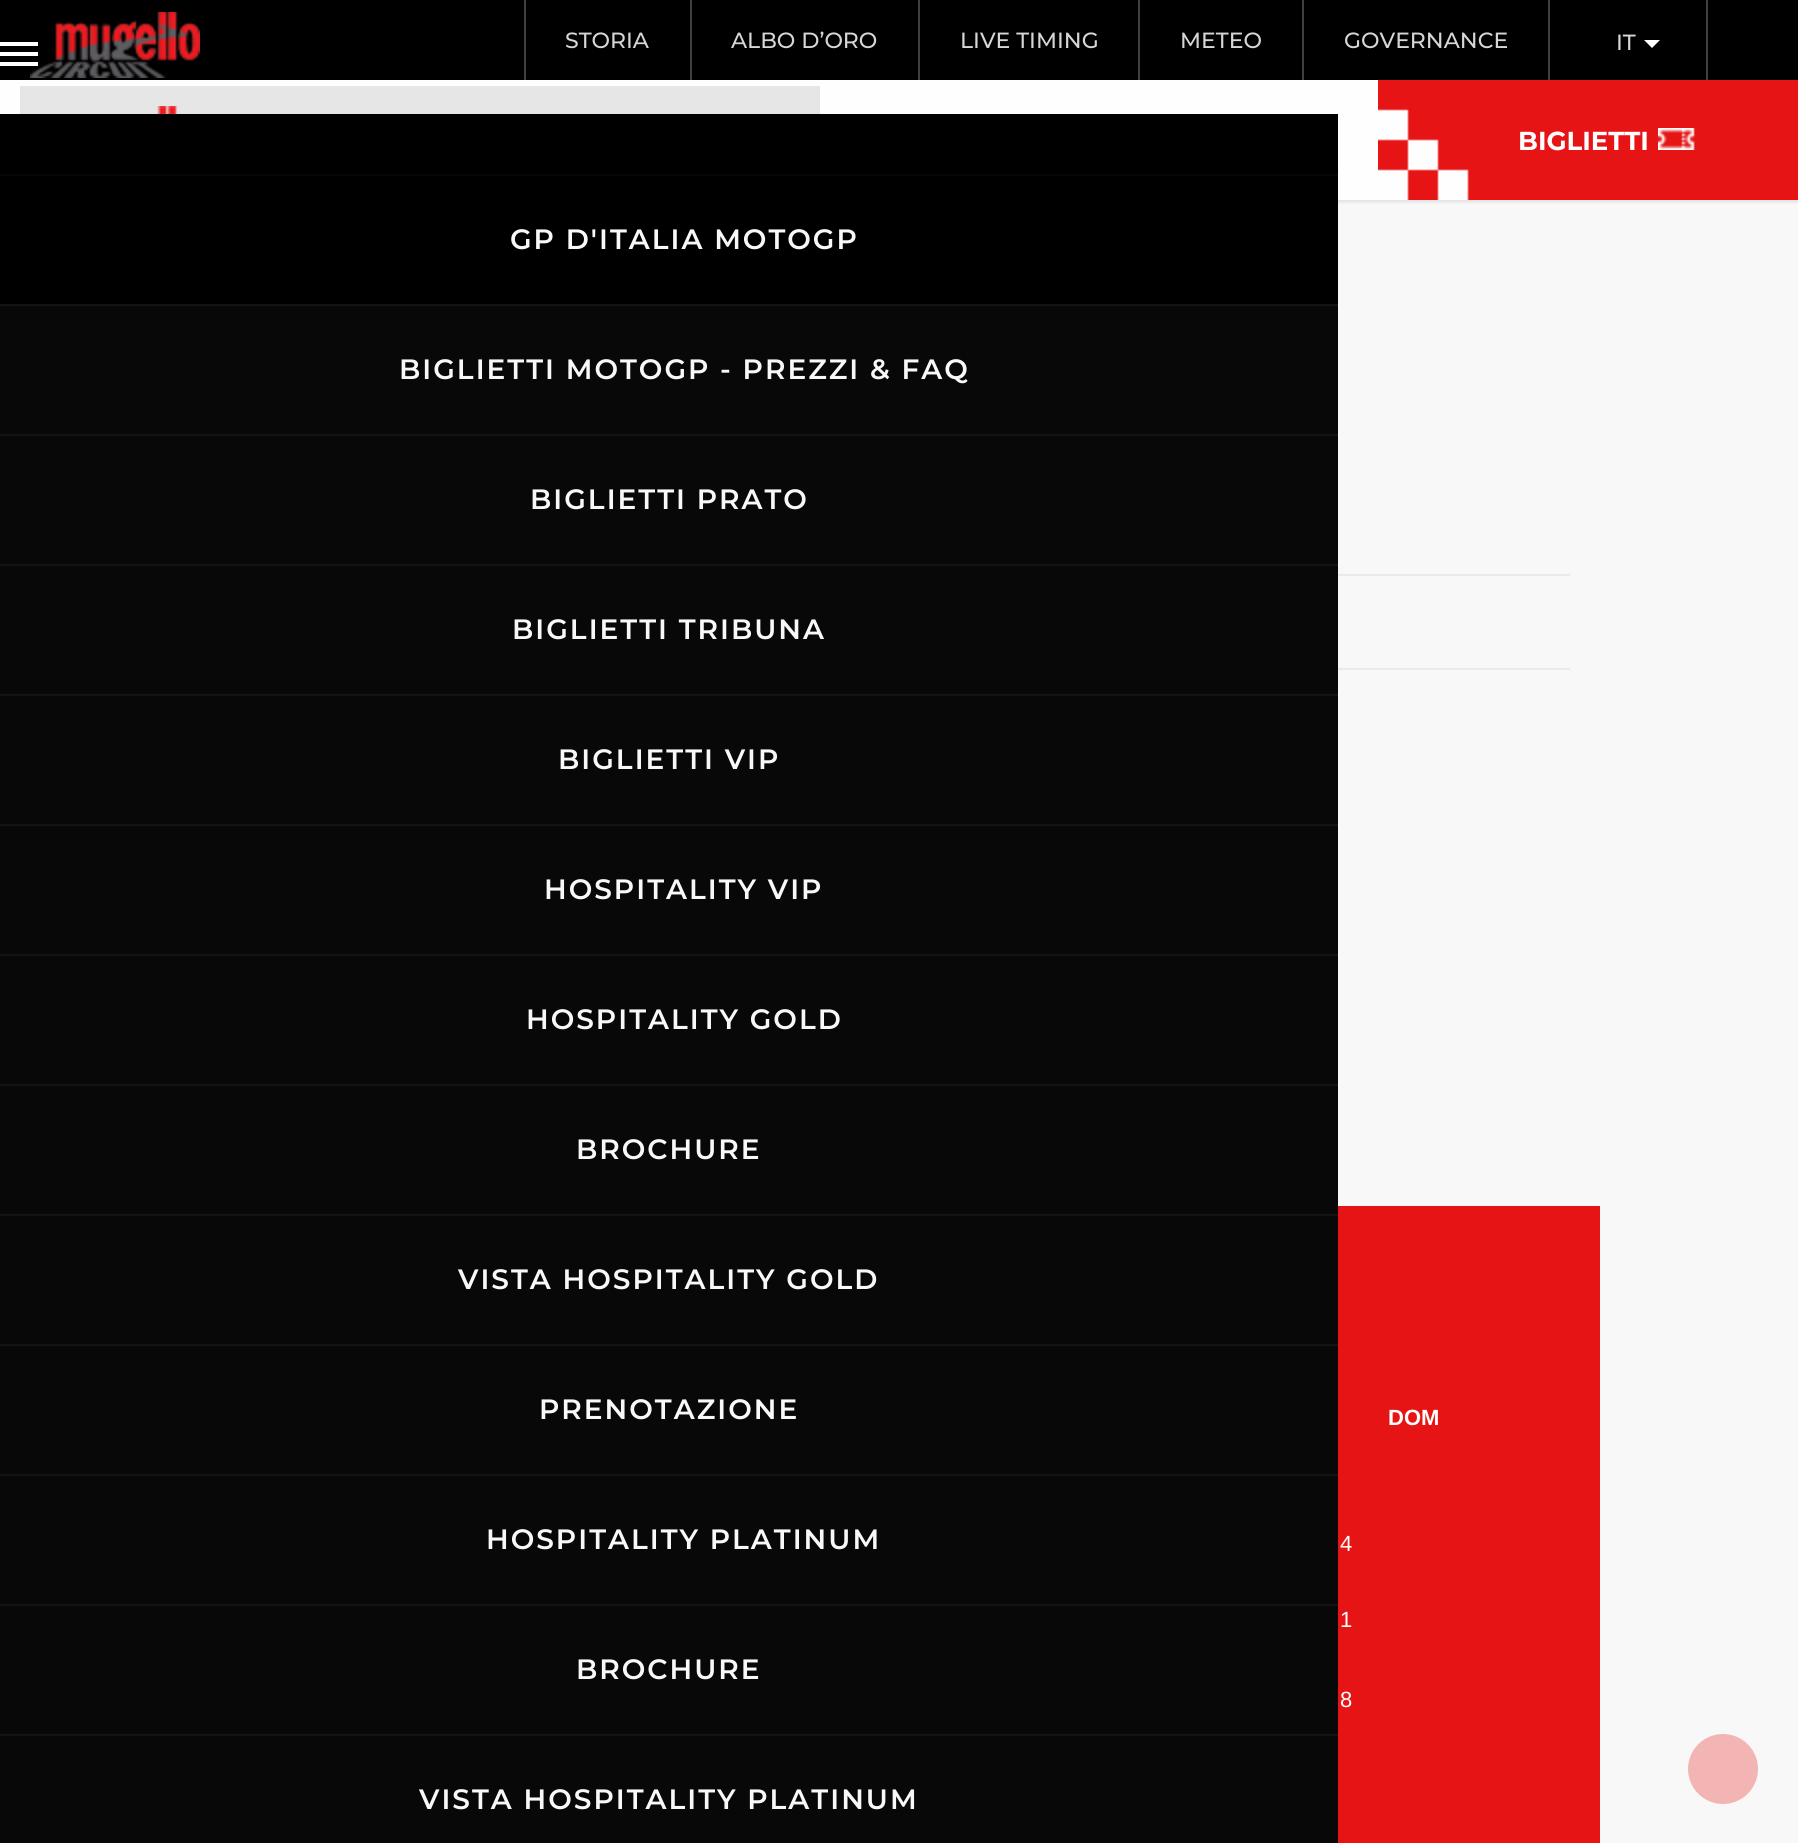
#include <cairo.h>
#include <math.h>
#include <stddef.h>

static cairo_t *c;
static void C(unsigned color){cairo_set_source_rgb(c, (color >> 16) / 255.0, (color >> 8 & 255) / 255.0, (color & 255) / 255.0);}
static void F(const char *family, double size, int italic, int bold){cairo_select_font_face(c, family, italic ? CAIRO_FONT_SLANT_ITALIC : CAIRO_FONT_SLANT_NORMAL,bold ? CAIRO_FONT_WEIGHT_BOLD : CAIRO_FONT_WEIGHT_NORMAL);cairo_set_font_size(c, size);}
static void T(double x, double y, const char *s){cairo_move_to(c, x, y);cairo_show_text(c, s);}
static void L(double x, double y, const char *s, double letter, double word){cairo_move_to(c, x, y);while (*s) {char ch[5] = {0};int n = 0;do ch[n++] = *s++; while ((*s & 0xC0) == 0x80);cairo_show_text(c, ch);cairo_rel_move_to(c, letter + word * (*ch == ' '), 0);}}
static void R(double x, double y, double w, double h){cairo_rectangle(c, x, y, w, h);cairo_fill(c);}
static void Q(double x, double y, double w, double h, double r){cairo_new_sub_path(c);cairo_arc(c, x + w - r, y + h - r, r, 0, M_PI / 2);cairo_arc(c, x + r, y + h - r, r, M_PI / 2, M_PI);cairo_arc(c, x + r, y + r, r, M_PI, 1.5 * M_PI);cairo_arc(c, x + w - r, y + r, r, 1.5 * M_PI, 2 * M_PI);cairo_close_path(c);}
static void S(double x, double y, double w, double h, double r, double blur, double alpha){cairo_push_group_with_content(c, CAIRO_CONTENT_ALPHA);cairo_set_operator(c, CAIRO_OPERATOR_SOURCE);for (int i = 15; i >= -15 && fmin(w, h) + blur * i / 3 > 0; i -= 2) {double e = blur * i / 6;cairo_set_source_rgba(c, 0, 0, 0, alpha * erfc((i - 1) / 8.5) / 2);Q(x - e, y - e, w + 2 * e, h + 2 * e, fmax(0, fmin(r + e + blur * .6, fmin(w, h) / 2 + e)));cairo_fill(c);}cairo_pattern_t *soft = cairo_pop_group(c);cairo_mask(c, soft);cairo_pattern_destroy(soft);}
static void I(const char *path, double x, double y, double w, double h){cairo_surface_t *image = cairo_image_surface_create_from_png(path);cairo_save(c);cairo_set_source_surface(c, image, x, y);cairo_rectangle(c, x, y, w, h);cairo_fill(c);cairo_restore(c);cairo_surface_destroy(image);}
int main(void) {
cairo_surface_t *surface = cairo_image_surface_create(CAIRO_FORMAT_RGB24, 1798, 1843);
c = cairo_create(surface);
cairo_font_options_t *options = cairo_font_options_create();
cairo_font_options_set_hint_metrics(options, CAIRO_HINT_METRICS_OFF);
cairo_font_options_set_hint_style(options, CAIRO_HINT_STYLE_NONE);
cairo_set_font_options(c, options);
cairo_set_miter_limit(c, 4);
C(0xf8f8f8);
cairo_paint(c);
C(0xfefefe);
R(0,80,1469,120);
C(0xe6e6e6);
R(20,86,800,28);
cairo_save(c);
cairo_rectangle(c,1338,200,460,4);
cairo_clip(c);
C(0x000000);
S(0,0,1798,200,0,3,.2);
cairo_restore(c);
C(0x000000);
R(0,0,1798,80);
C(0x404040);
R(524,0,2,80);
F("Montserrat Medium",22,0,0);
C(0xd6d6d6);
T(565,48,"STORIA");
C(0x404040);
R(690,0,2,80);
C(0xd6d6d6);
T(731,48,"ALBO D’ORO");
C(0x404040);
R(918,0,2,80);
C(0xd6d6d6);
T(960,48,"LIVE TIMING");
C(0x404040);
R(1138,0,2,80);
C(0xd6d6d6);
T(1180,48,"METEO");
C(0x404040);
R(1548,0,2,80);
R(1302,0,2,80);
C(0xd6d6d6);
T(1344,48,"GOVERNANCE");
C(0x404040);
R(1706,0,2,80);
C(0xd6d6d6);
T(1616,50,"IT");
C(0xffffff);
cairo_new_path(c);
cairo_move_to(c,1644,40);
cairo_line_to(c,1660,40);
cairo_line_to(c,1652,48);
cairo_close_path(c);
cairo_fill(c);
I("1.png",157,106,22,8);
I("2.png",1378,80,420,120);
F("Montserrat",26,0,1);
T(1518,150,"BIGLIETTI");
I("3.png",1658,128,37,22);
R(0,52,38,4);
R(0,42,38,4);
R(0,62,38,4);
C(0x000000);
R(0,114,1338,190);
I("4.png",30,12,170,66);
C(0x060606);
R(0,174,1338,2);
F("Montserrat SemiBold",28,0,0);
C(0xf8f8f8);
L(510,249,"GP D'ITALIA MOTOGP",2,0);
C(0x080808);
R(0,306,1338,128);
C(0x131313);
R(0,304,1338,2);
C(0xf8f8f8);
L(399,379,"BIGLIETTI MOTOGP - PREZZI & FAQ",2,0);
C(0x080808);
R(0,436,1338,128);
C(0x131313);
R(0,434,1338,2);
C(0xf8f8f8);
L(530,509,"BIGLIETTI PRATO",2,0);
C(0x080808);
R(0,566,1338,128);
C(0x131313);
R(0,564,1338,2);
C(0xf8f8f8);
L(512,639,"BIGLIETTI TRIBUNA",2,0);
C(0x080808);
R(0,696,1338,128);
C(0x131313);
R(0,694,1338,2);
C(0xf8f8f8);
L(558,769,"BIGLIETTI VIP",2,0);
C(0x080808);
R(0,826,1338,128);
C(0x131313);
R(0,824,1338,2);
C(0xf8f8f8);
L(544,899,"HOSPITALITY VIP",2,0);
C(0x080808);
R(0,956,1338,128);
C(0x131313);
R(0,954,1338,2);
C(0xf8f8f8);
L(526,1029,"HOSPITALITY GOLD",2,0);
C(0x080808);
R(0,1086,1338,128);
C(0x131313);
R(0,1084,1338,2);
C(0xf8f8f8);
L(576,1159,"BROCHURE",2,0);
C(0x080808);
R(0,1216,1338,128);
C(0x131313);
R(0,1214,1338,2);
C(0xf8f8f8);
L(458,1289,"VISTA HOSPITALITY GOLD",2,0);
C(0x080808);
R(0,1346,1338,128);
C(0x131313);
R(0,1344,1338,2);
C(0xf8f8f8);
L(539,1419,"PRENOTAZIONE",2,0);
C(0x080808);
R(0,1476,1338,128);
C(0x131313);
R(0,1474,1338,2);
C(0xf8f8f8);
L(486,1549,"HOSPITALITY PLATINUM",2,0);
C(0x080808);
R(0,1606,1338,128);
C(0x131313);
R(0,1604,1338,2);
C(0xf8f8f8);
L(576,1679,"BROCHURE",2,0);
C(0x080808);
R(0,1736,1338,107);
C(0x131313);
R(0,1734,1338,2);
C(0xf8f8f8);
L(419,1809,"VISTA HOSPITALITY PLATINUM",2,0);
C(0xeaeaea);
R(1338,574,232,2);
R(1338,668,232,2);
C(0xe61414);
R(1338,1206,262,637);
F("Liberation Sans",22,0,1);
C(0xffffff);
T(1388,1425,"DOM");
F("Liberation Sans",22,0,0);
T(1340,1551,"4");
T(1340,1627,"1");
T(1340,1707,"8");
C(0xf3b4b4);
cairo_new_path(c);
cairo_arc(c,1723,1769,35,0,2 * M_PI);
cairo_fill(c);
cairo_surface_write_to_png(surface, "o.png");
cairo_font_options_destroy(options);
cairo_destroy(c);
cairo_surface_destroy(surface);
return 0;
}
